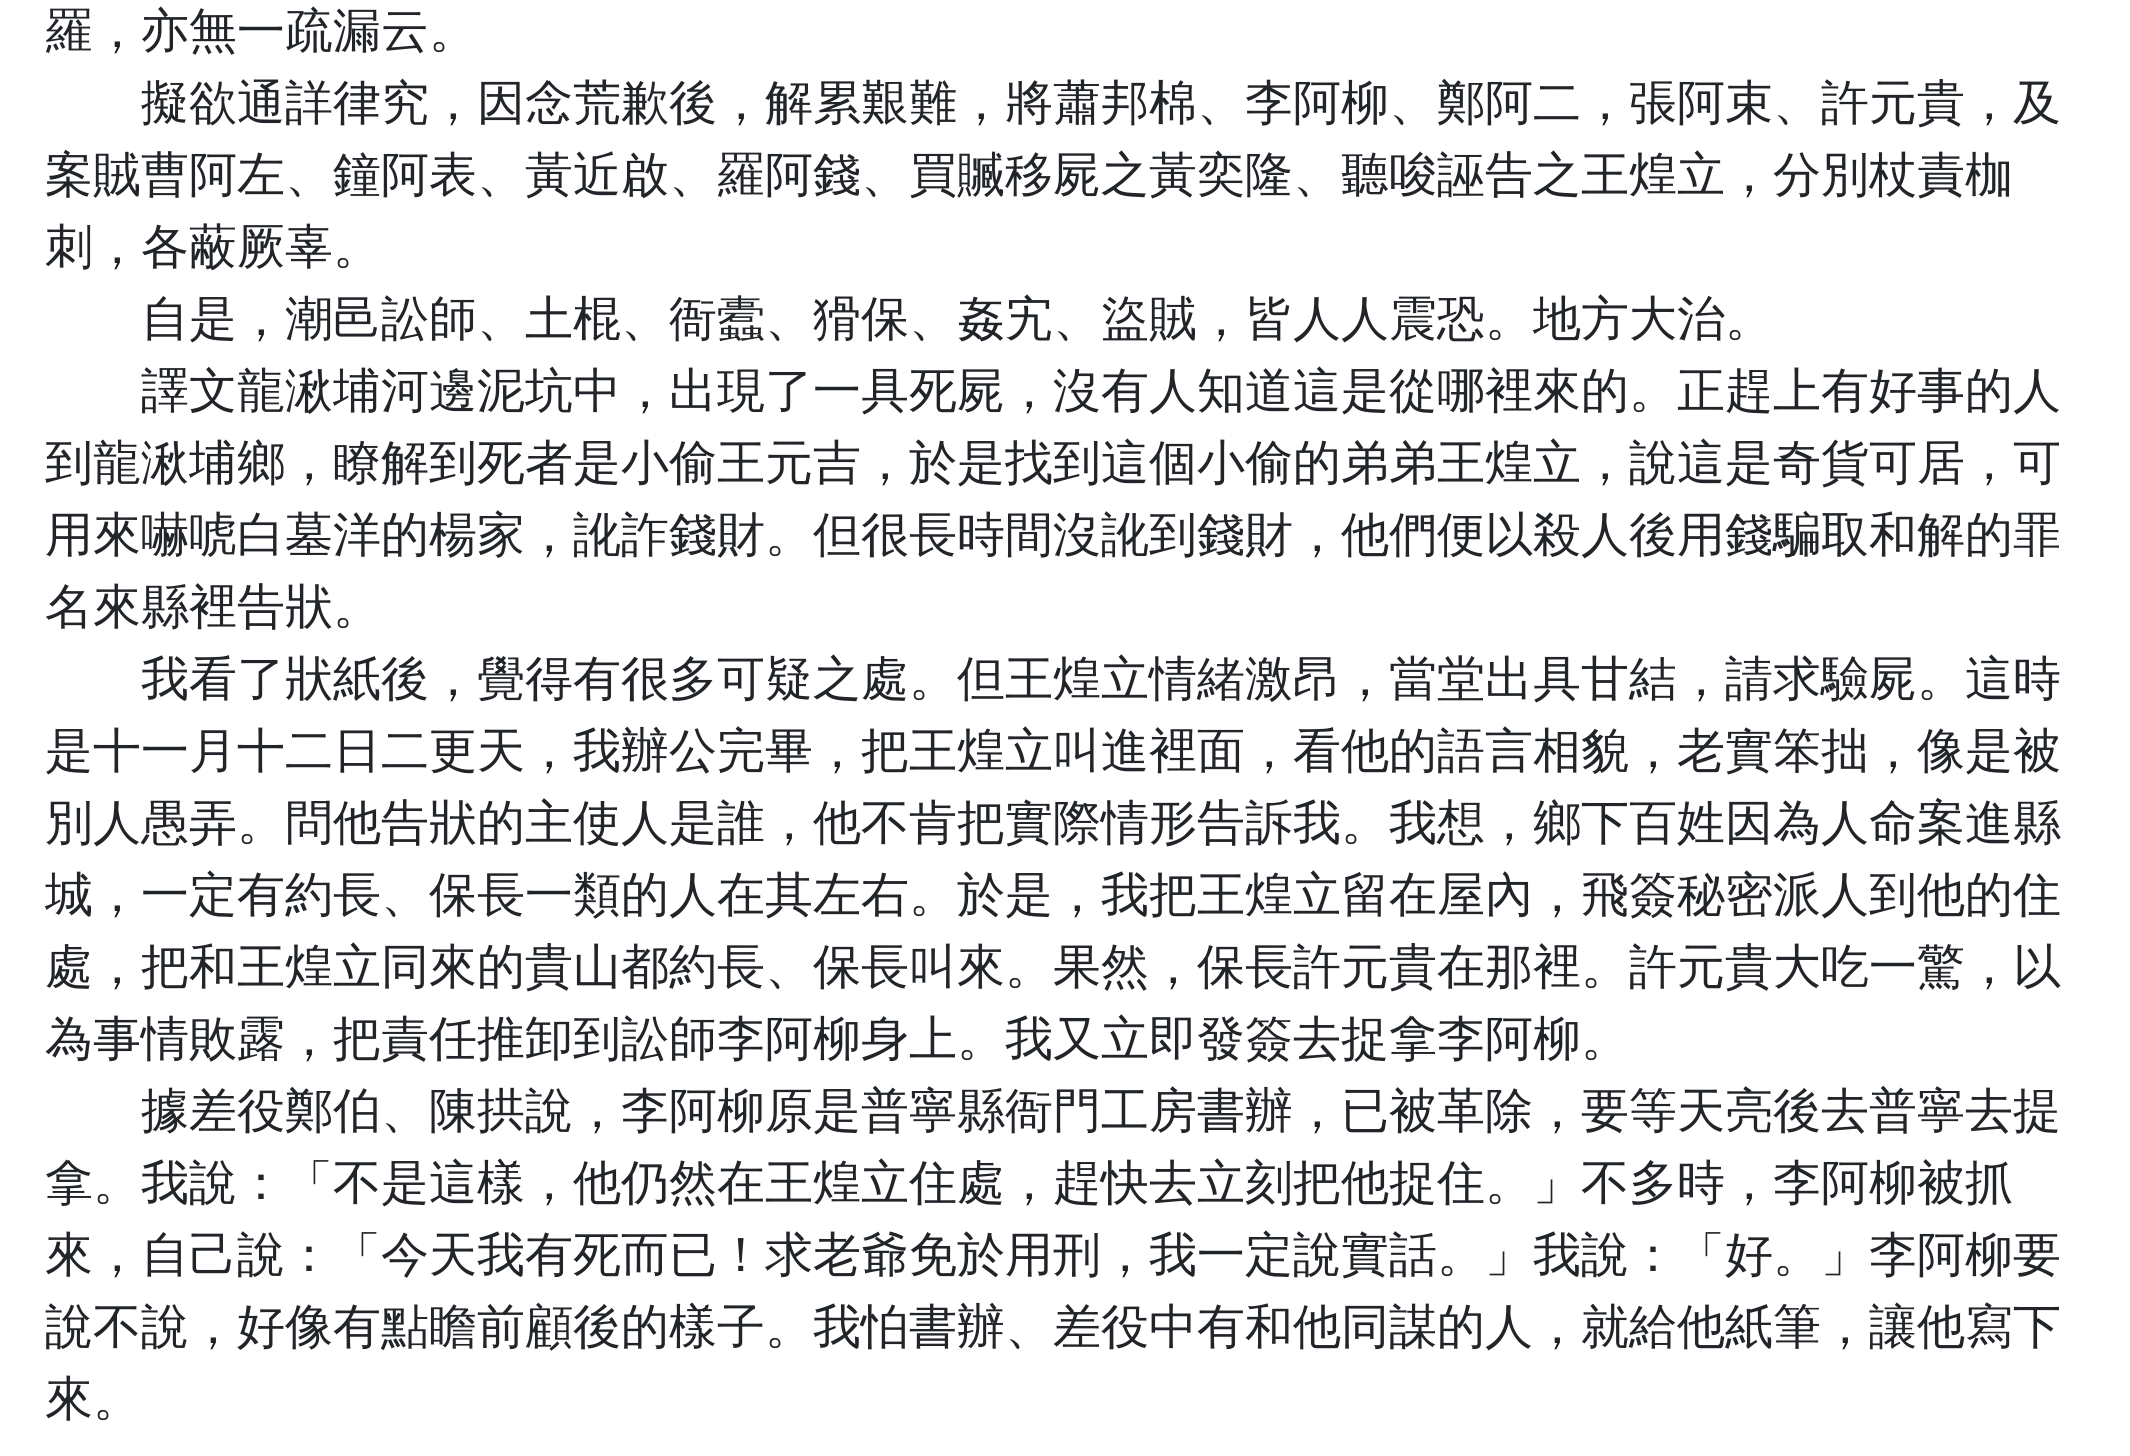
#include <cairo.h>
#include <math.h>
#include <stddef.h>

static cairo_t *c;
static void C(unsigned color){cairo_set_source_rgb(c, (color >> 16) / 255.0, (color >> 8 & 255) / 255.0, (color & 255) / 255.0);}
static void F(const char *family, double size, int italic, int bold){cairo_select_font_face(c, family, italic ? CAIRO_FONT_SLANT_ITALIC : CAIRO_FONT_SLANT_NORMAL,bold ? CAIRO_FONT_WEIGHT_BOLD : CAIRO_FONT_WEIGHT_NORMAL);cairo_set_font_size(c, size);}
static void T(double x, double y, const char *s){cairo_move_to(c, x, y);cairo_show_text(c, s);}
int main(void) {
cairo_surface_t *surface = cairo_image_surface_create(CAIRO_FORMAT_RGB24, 2130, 1456);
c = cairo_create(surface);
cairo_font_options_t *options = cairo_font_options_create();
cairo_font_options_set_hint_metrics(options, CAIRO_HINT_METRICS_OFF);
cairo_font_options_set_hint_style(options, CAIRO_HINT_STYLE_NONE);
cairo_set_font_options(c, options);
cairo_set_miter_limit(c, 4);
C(0xffffff);
cairo_paint(c);
F("WenQuanYi Zen Hei Medium",48,0,0);
C(0x212529);
T(45,47,"羅，亦無一疏漏云。");
T(141,119,"擬欲通詳律究，因念荒歉後，解累艱難，將蕭邦棉、李阿柳、鄭阿二，張阿束、許元貴，及");
T(45,191,"案賊曹阿左、鐘阿表、黃近啟、羅阿錢、買贓移屍之黃奕隆、聽唆誣告之王煌立，分別杖責枷");
T(45,263,"刺，各蔽厥辜。");
T(141,335,"自是，潮邑訟師、土棍、衙蠹、猾保、姦宄、盜賊，皆人人震恐。地方大治。");
T(141,407,"譯文龍湫埔河邊泥坑中，出現了一具死屍，沒有人知道這是從哪裡來的。正趕上有好事的人");
T(45,479,"到龍湫埔鄉，瞭解到死者是小偷王元吉，於是找到這個小偷的弟弟王煌立，說這是奇貨可居，可");
T(45,551,"用來嚇唬白墓洋的楊家，訛詐錢財。但很長時間沒訛到錢財，他們便以殺人後用錢騙取和解的罪");
T(45,623,"名來縣裡告狀。");
T(141,695,"我看了狀紙後，覺得有很多可疑之處。但王煌立情緒激昂，當堂出具甘結，請求驗屍。這時");
T(45,767,"是十一月十二日二更天，我辦公完畢，把王煌立叫進裡面，看他的語言相貌，老實笨拙，像是被");
T(45,839,"別人愚弄。問他告狀的主使人是誰，他不肯把實際情形告訴我。我想，鄉下百姓因為人命案進縣");
T(45,911,"城，一定有約長、保長一類的人在其左右。於是，我把王煌立留在屋內，飛簽秘密派人到他的住");
T(45,983,"處，把和王煌立同來的貴山都約長、保長叫來。果然，保長許元貴在那裡。許元貴大吃一驚，以");
T(45,1055,"為事情敗露，把責任推卸到訟師李阿柳身上。我又立即發簽去捉拿李阿柳。");
T(141,1127,"據差役鄭伯、陳拱說，李阿柳原是普寧縣衙門工房書辦，已被革除，要等天亮後去普寧去提");
T(45,1199,"拿。我說：「不是這樣，他仍然在王煌立住處，趕快去立刻把他捉住。」不多時，李阿柳被抓");
T(45,1271,"來，自己說：「今天我有死而已！求老爺免於用刑，我一定說實話。」我說：「好。」李阿柳要");
T(45,1343,"說不說，好像有點瞻前顧後的樣子。我怕書辦、差役中有和他同謀的人，就給他紙筆，讓他寫下");
T(45,1415,"來。");
cairo_surface_write_to_png(surface, "o.png");
cairo_font_options_destroy(options);
cairo_destroy(c);
cairo_surface_destroy(surface);
return 0;
}
